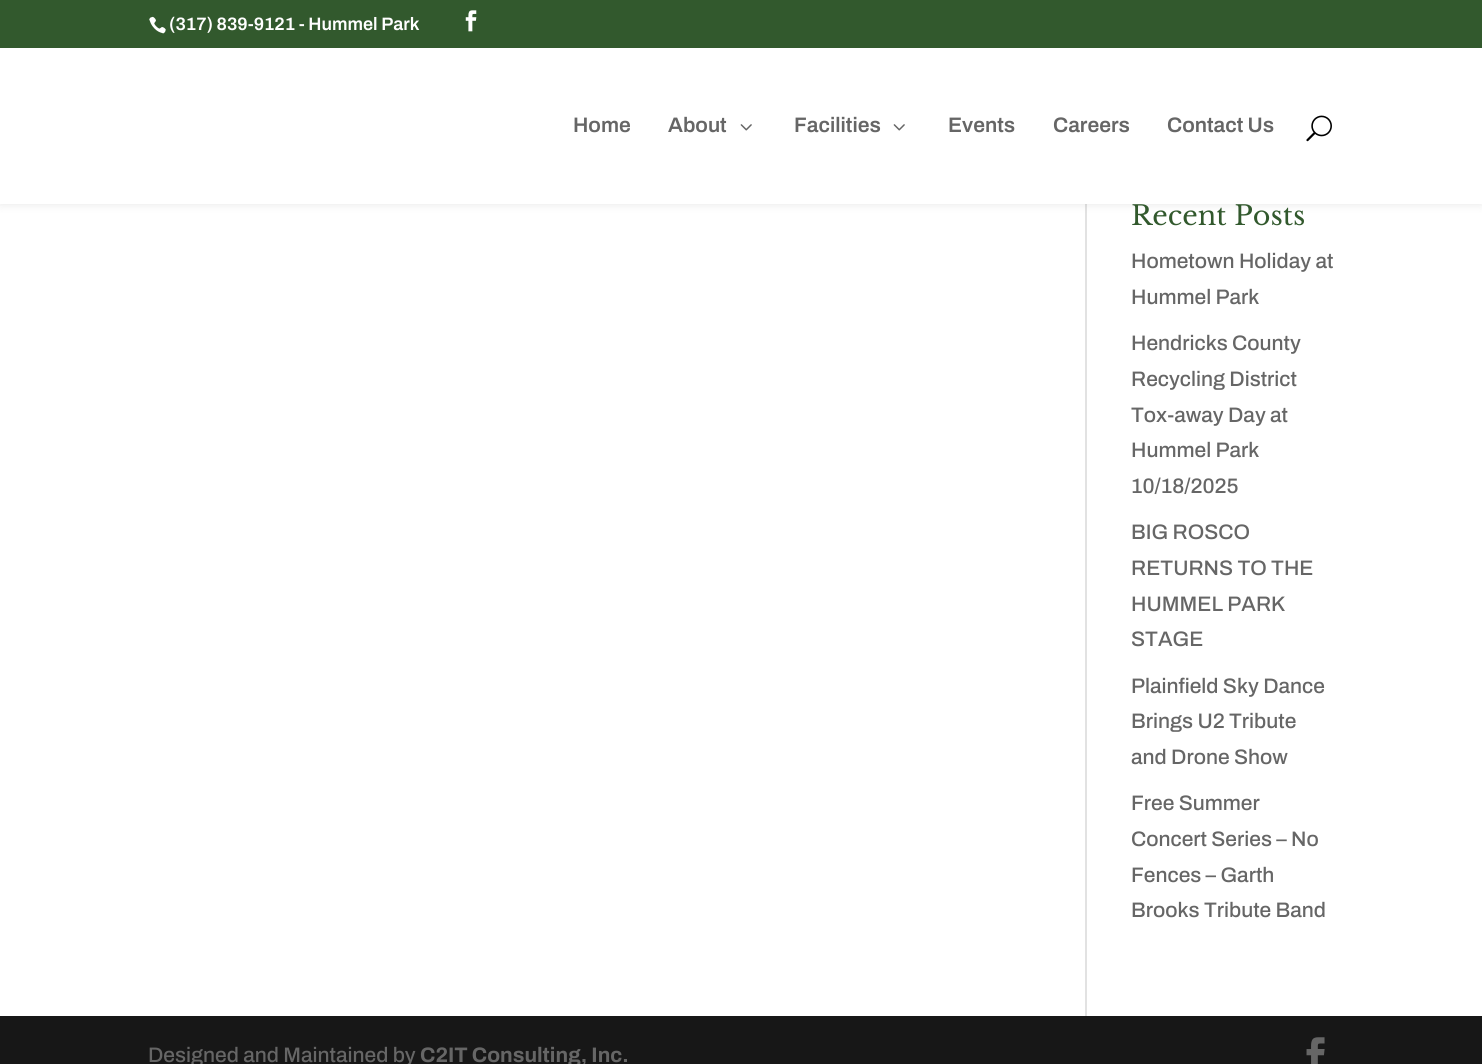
#include <cairo.h>
#include <math.h>
#include <stddef.h>

static cairo_t *c;
static void C(unsigned color){cairo_set_source_rgb(c, (color >> 16) / 255.0, (color >> 8 & 255) / 255.0, (color & 255) / 255.0);}
static void F(const char *family, double size, int italic, int bold){cairo_select_font_face(c, family, italic ? CAIRO_FONT_SLANT_ITALIC : CAIRO_FONT_SLANT_NORMAL,bold ? CAIRO_FONT_WEIGHT_BOLD : CAIRO_FONT_WEIGHT_NORMAL);cairo_set_font_size(c, size);}
static void T(double x, double y, const char *s){cairo_move_to(c, x, y);cairo_show_text(c, s);}
static void R(double x, double y, double w, double h){cairo_rectangle(c, x, y, w, h);cairo_fill(c);}
static void Q(double x, double y, double w, double h, double r){cairo_new_sub_path(c);cairo_arc(c, x + w - r, y + h - r, r, 0, M_PI / 2);cairo_arc(c, x + r, y + h - r, r, M_PI / 2, M_PI);cairo_arc(c, x + r, y + r, r, M_PI, 1.5 * M_PI);cairo_arc(c, x + w - r, y + r, r, 1.5 * M_PI, 2 * M_PI);cairo_close_path(c);}
static void S(double x, double y, double w, double h, double r, double blur, double alpha){cairo_push_group_with_content(c, CAIRO_CONTENT_ALPHA);cairo_set_operator(c, CAIRO_OPERATOR_SOURCE);for (int i = 15; i >= -15 && fmin(w, h) + blur * i / 3 > 0; i -= 2) {double e = blur * i / 6;cairo_set_source_rgba(c, 0, 0, 0, alpha * erfc((i - 1) / 8.5) / 2);Q(x - e, y - e, w + 2 * e, h + 2 * e, fmax(0, fmin(r + e + blur * .6, fmin(w, h) / 2 + e)));cairo_fill(c);}cairo_pattern_t *soft = cairo_pop_group(c);cairo_mask(c, soft);cairo_pattern_destroy(soft);}
static void I(const char *path, double x, double y, double w, double h){cairo_surface_t *image = cairo_image_surface_create_from_png(path);cairo_save(c);cairo_set_source_surface(c, image, x, y);cairo_rectangle(c, x, y, w, h);cairo_fill(c);cairo_restore(c);cairo_surface_destroy(image);}
int main(void) {
cairo_surface_t *surface = cairo_image_surface_create(CAIRO_FORMAT_RGB24, 1482, 1064);
c = cairo_create(surface);
cairo_font_options_t *options = cairo_font_options_create();
cairo_font_options_set_hint_metrics(options, CAIRO_HINT_METRICS_OFF);
cairo_font_options_set_hint_style(options, CAIRO_HINT_STYLE_NONE);
cairo_set_font_options(c, options);
cairo_set_miter_limit(c, 4);
C(0xffffff);
cairo_paint(c);
C(0xe2e2e2);
R(1085,204,2,812);
C(0x000000);
S(0,48,1482,156,0,5,.1);
C(0x32592d);
R(0,0,1482,48);
I("1.png",149,16,17,18);
F("Archivo SemiBold",18,0,0);
C(0xffffff);
T(169,30,"(317) 839-9121 - Hummel Park");
I("2.png",465,10,12,22);
R(0,48,1482,156);
F("Archivo SemiBold",21,0,0);
C(0x666666);
T(573,132,"Home");
T(668,132,"About");
I("3.png",740,124,12,7);
T(794,132,"Facilities");
I("3.png",893,124,12,7);
T(948,132,"Events");
T(1053,132,"Careers");
T(1167,132,"Contact Us");
I("4.png",1306,115,26,27);
F("Libre Baskerville",27,0,0);
C(0x32592d);
T(1131,225,"Recent Posts");
F("Archivo Medium",21,0,0);
C(0x666666);
T(1131,268,"Hometown Holiday at");
T(1131,304,"Hummel Park");
T(1131,350,"Hendricks County");
T(1131,386,"Recycling District");
T(1131,422,"Tox-away Day at");
T(1131,457,"Hummel Park");
T(1131,493,"10/18/2025");
T(1131,539,"BIG ROSCO");
T(1131,575,"RETURNS TO THE");
T(1131,611,"HUMMEL PARK");
T(1131,646,"STAGE");
T(1131,693,"Plainfield Sky Dance");
T(1131,728,"Brings U2 Tribute");
T(1131,764,"and Drone Show");
T(1131,810,"Free Summer");
T(1131,846,"Concert Series – No");
T(1131,882,"Fences – Garth");
T(1131,917,"Brooks Tribute Band");
C(0x171717);
R(0,1016,1482,48);
C(0x666666);
T(148,1062,"Designed and Maintained by");
F("Archivo",21,0,1);
T(420,1062,"C2IT Consulting, Inc.");
I("5.png",1306,1037,19,27);
cairo_surface_write_to_png(surface, "o.png");
cairo_font_options_destroy(options);
cairo_destroy(c);
cairo_surface_destroy(surface);
return 0;
}
